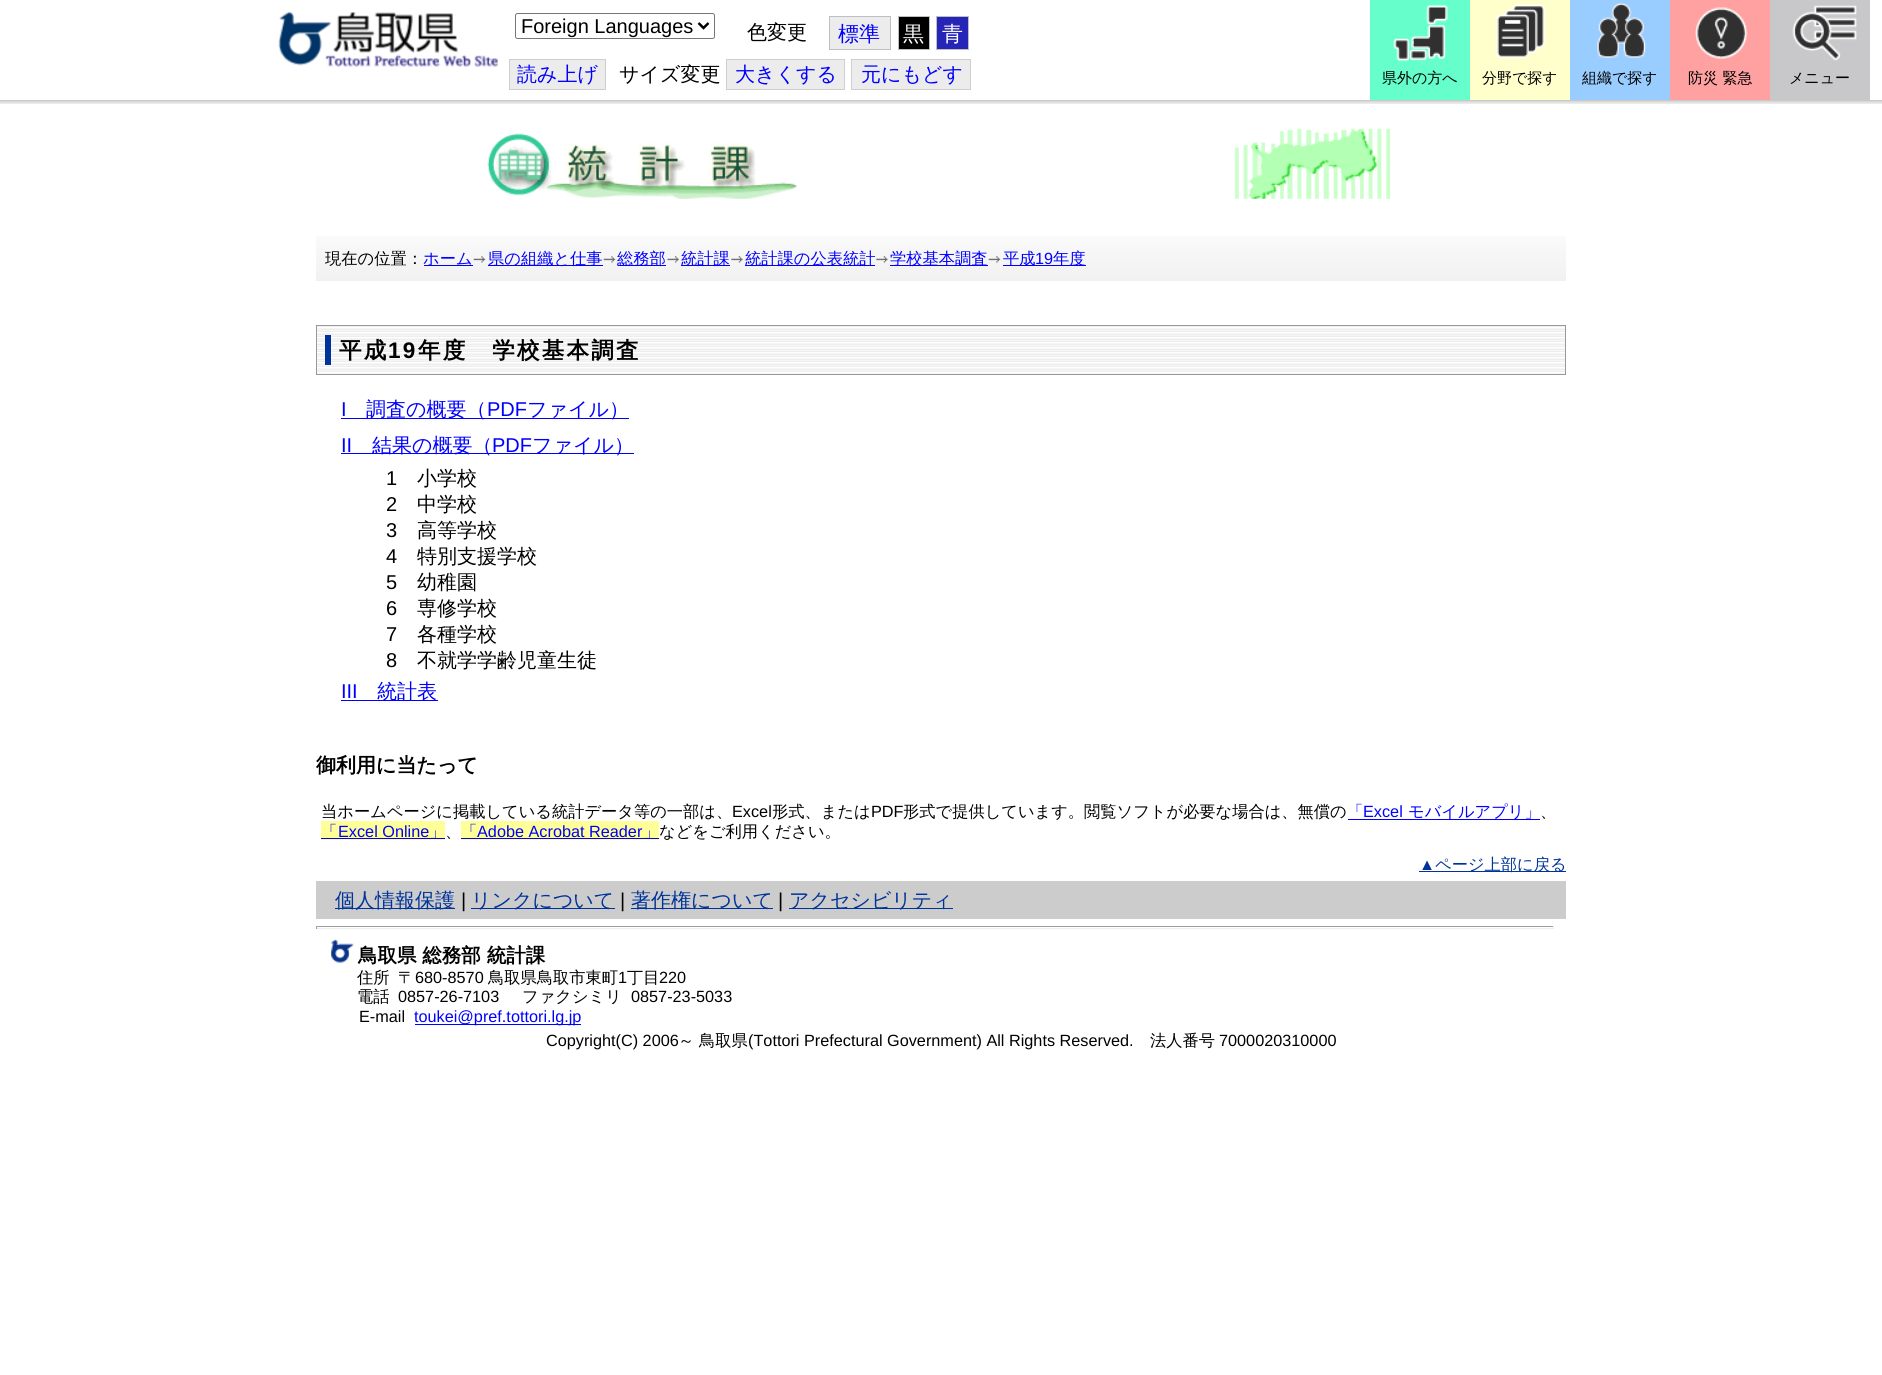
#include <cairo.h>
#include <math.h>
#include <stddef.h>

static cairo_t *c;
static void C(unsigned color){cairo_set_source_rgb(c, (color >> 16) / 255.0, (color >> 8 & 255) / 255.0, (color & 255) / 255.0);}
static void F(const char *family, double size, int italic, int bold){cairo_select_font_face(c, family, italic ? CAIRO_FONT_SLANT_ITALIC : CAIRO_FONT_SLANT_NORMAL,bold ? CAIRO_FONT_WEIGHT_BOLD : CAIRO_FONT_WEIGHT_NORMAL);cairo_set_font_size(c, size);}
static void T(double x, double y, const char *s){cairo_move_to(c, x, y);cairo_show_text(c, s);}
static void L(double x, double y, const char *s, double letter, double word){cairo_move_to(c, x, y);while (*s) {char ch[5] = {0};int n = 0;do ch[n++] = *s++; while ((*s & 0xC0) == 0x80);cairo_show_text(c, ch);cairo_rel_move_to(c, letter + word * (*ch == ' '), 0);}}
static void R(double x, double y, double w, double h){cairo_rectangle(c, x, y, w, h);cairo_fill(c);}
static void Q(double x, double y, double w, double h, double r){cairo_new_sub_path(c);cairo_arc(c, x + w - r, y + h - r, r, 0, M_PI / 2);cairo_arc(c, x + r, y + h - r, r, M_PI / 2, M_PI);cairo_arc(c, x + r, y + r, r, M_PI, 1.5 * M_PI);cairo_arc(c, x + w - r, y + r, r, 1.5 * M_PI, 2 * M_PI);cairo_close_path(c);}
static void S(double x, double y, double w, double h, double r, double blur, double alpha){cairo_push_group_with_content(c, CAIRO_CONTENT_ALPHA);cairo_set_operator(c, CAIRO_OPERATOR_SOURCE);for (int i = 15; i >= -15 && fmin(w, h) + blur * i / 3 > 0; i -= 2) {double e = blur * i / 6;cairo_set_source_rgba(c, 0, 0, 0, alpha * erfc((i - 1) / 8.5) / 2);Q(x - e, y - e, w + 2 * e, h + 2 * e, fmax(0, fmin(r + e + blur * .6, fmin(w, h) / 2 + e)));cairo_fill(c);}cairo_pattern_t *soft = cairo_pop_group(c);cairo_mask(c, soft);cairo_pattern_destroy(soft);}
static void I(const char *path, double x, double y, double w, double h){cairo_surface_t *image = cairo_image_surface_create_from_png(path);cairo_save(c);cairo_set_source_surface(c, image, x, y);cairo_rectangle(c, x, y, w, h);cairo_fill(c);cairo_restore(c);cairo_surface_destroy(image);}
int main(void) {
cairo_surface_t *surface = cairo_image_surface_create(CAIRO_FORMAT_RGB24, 1882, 1375);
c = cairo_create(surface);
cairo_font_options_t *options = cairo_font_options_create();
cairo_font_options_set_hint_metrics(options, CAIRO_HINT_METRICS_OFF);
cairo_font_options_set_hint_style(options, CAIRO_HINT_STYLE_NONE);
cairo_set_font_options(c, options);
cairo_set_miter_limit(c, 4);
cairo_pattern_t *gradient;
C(0xffffff);
cairo_paint(c);
cairo_save(c);
cairo_rectangle(c,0,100,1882,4);
cairo_clip(c);
C(0x000000);
S(-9,1,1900,100,0,3,.1);
S(-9,1,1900,100,0,3,.1);
S(-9,1,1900,100,0,3,.1);
S(-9,1,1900,100,0,3,.1);
cairo_restore(c);
I("1.png",278,12,220,55);
Q(515.5,13.5,199,25,2);
C(0x767676);
cairo_set_line_width(c,1);
cairo_stroke(c);
cairo_new_path(c);
cairo_move_to(c,698.5,23);
cairo_line_to(c,703.5,28);
cairo_line_to(c,708.5,23);
C(0x000000);
cairo_set_line_width(c,2.5);
cairo_stroke(c);
F("Liberation Sans",20,0,0);
T(521,33,"Foreign Languages");
F("WenQuanYi Zen Hei Medium",20,0,0);
T(747,39,"色変更");
C(0xececec);
cairo_rectangle(c,829.5,16.5,61,33);
cairo_fill_preserve(c);
C(0xbfbfbf);
cairo_set_line_width(c,1);
cairo_stroke(c);
F("WenQuanYi Zen Hei Medium",21,0,0);
C(0x0000ff);
T(838,41,"標準");
C(0x000000);
cairo_rectangle(c,898.5,16.5,31,33);
cairo_fill_preserve(c);
C(0xbfbfbf);
cairo_stroke(c);
C(0xffffff);
T(903,41,"黒");
C(0x2525b8);
cairo_rectangle(c,936.5,16.5,32,33);
cairo_fill_preserve(c);
C(0xbfbfbf);
cairo_stroke(c);
C(0xffffff);
T(942,41,"青");
C(0xececec);
cairo_rectangle(c,509.5,59.5,96,30);
cairo_fill_preserve(c);
C(0xcecece);
cairo_stroke(c);
F("WenQuanYi Zen Hei Medium",20,0,0);
C(0x0000ff);
T(517,81,"読み上げ");
C(0x000000);
T(619,81,"サイズ変更");
C(0xececec);
R(727,60,117,29);
C(0x0000ff);
T(735,81,"大きくする");
C(0xcecece);
R(726,59,119,1);
R(726,89,29,1);
R(726,59,1,31);
R(844,59,1,31);
R(755,89,90,1);
C(0xececec);
R(852,60,118,29);
C(0x0000ff);
T(861,81,"元にもどす");
C(0xcecece);
R(851,59,120,1);
R(851,89,29,1);
R(851,59,1,31);
R(970,59,1,31);
R(880,89,91,1);
C(0x66ffcc);
R(1370,0,100,100);
I("2.png",1393,4,55,58);
F("WenQuanYi Zen Hei Medium",15,0,0);
C(0x000000);
T(1382,83,"県外の方へ");
C(0xffffcc);
R(1470,0,100,100);
I("3.png",1496,4,50,55);
C(0x000000);
T(1482,83,"分野で探す");
C(0x99ccff);
R(1570,0,100,100);
I("4.png",1597,2,50,56);
C(0x000000);
T(1582,83,"組織で探す");
C(0xffa1a1);
R(1670,0,100,100);
I("5.png",1695,7,53,52);
C(0x000000);
T(1688,83,"防災 緊急");
C(0xc8c8cb);
R(1770,0,100,100);
I("6.png",1792,5,65,56);
C(0x000000);
T(1789,83,"メニュー");
I("7.png",487,128,904,71);
gradient = cairo_pattern_create_linear(941,236,941,281);
cairo_pattern_add_color_stop_rgba(gradient,0,0.98,0.98,0.98,1);
cairo_pattern_add_color_stop_rgba(gradient,1,0.945,0.945,0.945,1);
cairo_set_source(c,gradient);
cairo_pattern_destroy(gradient);
R(316,236,1250,45);
F("WenQuanYi Zen Hei Medium",16.25,0,0);
C(0x000000);
T(325,264,"現在の位置：");
C(0x0000ff);
R(424,265,49,1);
T(423,264,"ホーム");
I("8.png",473,256,13,7);
R(488,265,115,1);
T(488,264,"県の組織と仕事");
I("8.png",603,256,13,7);
R(618,265,48,1);
T(617,264,"総務部");
I("9.png",667,256,12,7);
R(681,265,49,1);
T(681,264,"統計課");
I("10.png",731,256,12,7);
R(745,265,130,1);
T(745,264,"統計課の公表統計");
I("11.png",876,256,12,7);
R(890,265,98,1);
T(890,264,"学校基本調査");
I("12.png",988,256,13,7);
R(1003,265,83,1);
T(1003,264,"平成");
F("Liberation Sans",16.25,0,0);
T(1035,264,"19");
F("WenQuanYi Zen Hei Medium",16.25,0,0);
T(1053,264,"年度");
I("13.png",317,326,1248,48);
cairo_rectangle(c,316.5,325.5,1249,49);
C(0x999999);
cairo_stroke(c);
C(0x003399);
R(325,335,6,30);
F("WenQuanYi Zen Hei",22.5,0,1);
C(0x000000);
L(339,358,"平成",2.25,0);
F("Liberation Sans",22.5,0,1);
L(388,358,"19",2.25,0);
F("WenQuanYi Zen Hei",22.5,0,1);
L(418,358,"年度　学校基本調査",2.25,0);
F("Liberation Sans",20,0,0);
C(0x0000ff);
T(341,416,"I");
R(341,418,288,1);
F("WenQuanYi Zen Hei Medium",20,0,0);
T(366,416,"調査の概要（");
F("Liberation Sans",20,0,0);
T(487,416,"PDF");
F("WenQuanYi Zen Hei Medium",20,0,0);
T(527,416,"ファイル）");
F("Liberation Sans",20,0,0);
T(341,452,"II");
R(341,453,293,1);
F("WenQuanYi Zen Hei Medium",20,0,0);
T(372,452,"結果の概要（");
F("Liberation Sans",20,0,0);
T(492,452,"PDF");
F("WenQuanYi Zen Hei Medium",20,0,0);
T(532,452,"ファイル）");
F("Liberation Sans",20,0,0);
C(0x000000);
T(386,485,"1");
F("WenQuanYi Zen Hei Medium",20,0,0);
T(417,485,"小学校");
F("Liberation Sans",20,0,0);
T(386,511,"2");
F("WenQuanYi Zen Hei Medium",20,0,0);
T(417,511,"中学校");
F("Liberation Sans",20,0,0);
T(386,537,"3");
F("WenQuanYi Zen Hei Medium",20,0,0);
T(417,537,"高等学校");
F("Liberation Sans",20,0,0);
T(386,563,"4");
F("WenQuanYi Zen Hei Medium",20,0,0);
T(417,563,"特別支援学校");
F("Liberation Sans",20,0,0);
T(386,589,"5");
F("WenQuanYi Zen Hei Medium",20,0,0);
T(417,589,"幼稚園");
F("Liberation Sans",20,0,0);
T(386,615,"6");
F("WenQuanYi Zen Hei Medium",20,0,0);
T(417,615,"専修学校");
F("Liberation Sans",20,0,0);
T(386,641,"7");
F("WenQuanYi Zen Hei Medium",20,0,0);
T(417,641,"各種学校");
F("Liberation Sans",20,0,0);
T(386,667,"8");
F("WenQuanYi Zen Hei Medium",20,0,0);
T(417,667,"不就学学齢児童生徒");
F("Liberation Sans",20,0,0);
C(0x0000ff);
T(341,698,"III");
R(341,700,97,1);
F("WenQuanYi Zen Hei Medium",20,0,0);
T(377,698,"統計表");
F("WenQuanYi Zen Hei",20,0,1);
C(0x000000);
T(316,772,"御利用に当たって");
F("WenQuanYi Zen Hei Medium",16.25,0,0);
T(321,817,"当ホームページに掲載している統計データ等の一部は、");
F("Liberation Sans",16.25,0,0);
T(732,817,"Excel");
F("WenQuanYi Zen Hei Medium",16.25,0,0);
T(772,817,"形式、または");
F("Liberation Sans",16.25,0,0);
T(871,817,"PDF");
F("WenQuanYi Zen Hei Medium",16.25,0,0);
T(903,817,"形式で提供しています。閲覧ソフトが必要な場合は、無償の");
C(0x0000ff);
T(1347,817,"「");
F("Liberation Sans",16.25,0,0);
T(1363,817,"Excel");
R(1348,819,192,1);
F("WenQuanYi Zen Hei Medium",16.25,0,0);
T(1408,817,"モバイルアプリ」");
C(0x000000);
T(1540,817,"、");
C(0xffff99);
R(321,821,124,19);
C(0x0000ff);
T(321,837,"「");
F("Liberation Sans",16.25,0,0);
T(338,837,"Excel Online");
R(321,838,124,1);
F("WenQuanYi Zen Hei Medium",16.25,0,0);
T(429,837,"」");
C(0x000000);
T(445,837,"、");
C(0xffff99);
R(461,821,198,19);
C(0x0000ff);
T(461,837,"「");
F("Liberation Sans",16.25,0,0);
T(477,837,"Adobe Acrobat Reader");
R(461,838,198,1);
F("WenQuanYi Zen Hei Medium",16.25,0,0);
T(643,837,"」");
C(0x000000);
T(659,837,"などをご利用ください。");
F("Liberation Sans",16.25,0,0);
C(0x003399);
T(1419,870,"▲");
R(1419,871,147,1);
F("WenQuanYi Zen Hei Medium",16.25,0,0);
T(1435,870,"ページ上部に戻る");
C(0xcccccc);
R(316,881,1250,38);
C(0x003399);
R(335,908,120,1);
F("WenQuanYi Zen Hei Medium",20,0,0);
T(335,907,"個人情報保護");
F("Liberation Sans",20,0,0);
C(0x000000);
T(461,907,"|");
C(0x003399);
R(471,908,144,1);
F("WenQuanYi Zen Hei Medium",20,0,0);
T(471,907,"リンクについて");
F("Liberation Sans",20,0,0);
C(0x000000);
T(620,907,"|");
C(0x003399);
R(631,908,142,1);
F("WenQuanYi Zen Hei Medium",20,0,0);
T(631,907,"著作権について");
F("Liberation Sans",20,0,0);
C(0x000000);
T(778,907,"|");
C(0x003399);
R(789,908,164,1);
F("WenQuanYi Zen Hei Medium",20,0,0);
T(789,907,"アクセシビリティ");
C(0x9f9f9f);
R(316,926,1238,1);
C(0xeeeeee);
R(1553,926,1,3);
R(316,928,1238,1);
C(0x9f9f9f);
R(316,926,1,3);
I("14.png",331,939,23,24);
F("WenQuanYi Zen Hei",19.5,0,1);
C(0x000000);
T(358,962,"鳥取県 総務部 統計課");
F("WenQuanYi Zen Hei Medium",16.25,0,0);
T(357,983,"住所");
T(398,983,"〒");
F("Liberation Sans",16.25,0,0);
T(415,983,"680-8570");
F("WenQuanYi Zen Hei Medium",16.25,0,0);
T(488,983,"鳥取県鳥取市東町");
F("Liberation Sans",16.25,0,0);
T(618,983,"1");
F("WenQuanYi Zen Hei Medium",16.25,0,0);
T(627,983,"丁目");
F("Liberation Sans",16.25,0,0);
T(659,983,"220");
F("WenQuanYi Zen Hei Medium",16.25,0,0);
T(357,1002,"電話");
F("Liberation Sans",16.25,0,0);
T(398,1002,"0857-26-7103");
F("WenQuanYi Zen Hei Medium",16.25,0,0);
T(522,1002,"ファクシミリ");
F("Liberation Sans",16.25,0,0);
T(631,1002,"0857-23-5033");
T(359,1022,"E-mail");
C(0x0000ff);
R(415,1024,166,1);
T(414,1022,"toukei@pref.tottori.lg.jp");
C(0x000000);
T(546,1046,"Copyright(C) 2006");
F("WenQuanYi Zen Hei Medium",16.25,0,0);
T(678,1046,"～");
T(699,1046,"鳥取県");
F("Liberation Sans",16.25,0,0);
T(748,1046,"(Tottori Prefectural Government) All Rights Reserved.");
F("WenQuanYi Zen Hei Medium",16.25,0,0);
T(1150,1046,"法人番号");
F("Liberation Sans",16.25,0,0);
T(1219,1046,"7000020310000");
cairo_surface_write_to_png(surface, "o.png");
cairo_font_options_destroy(options);
cairo_destroy(c);
cairo_surface_destroy(surface);
return 0;
}
